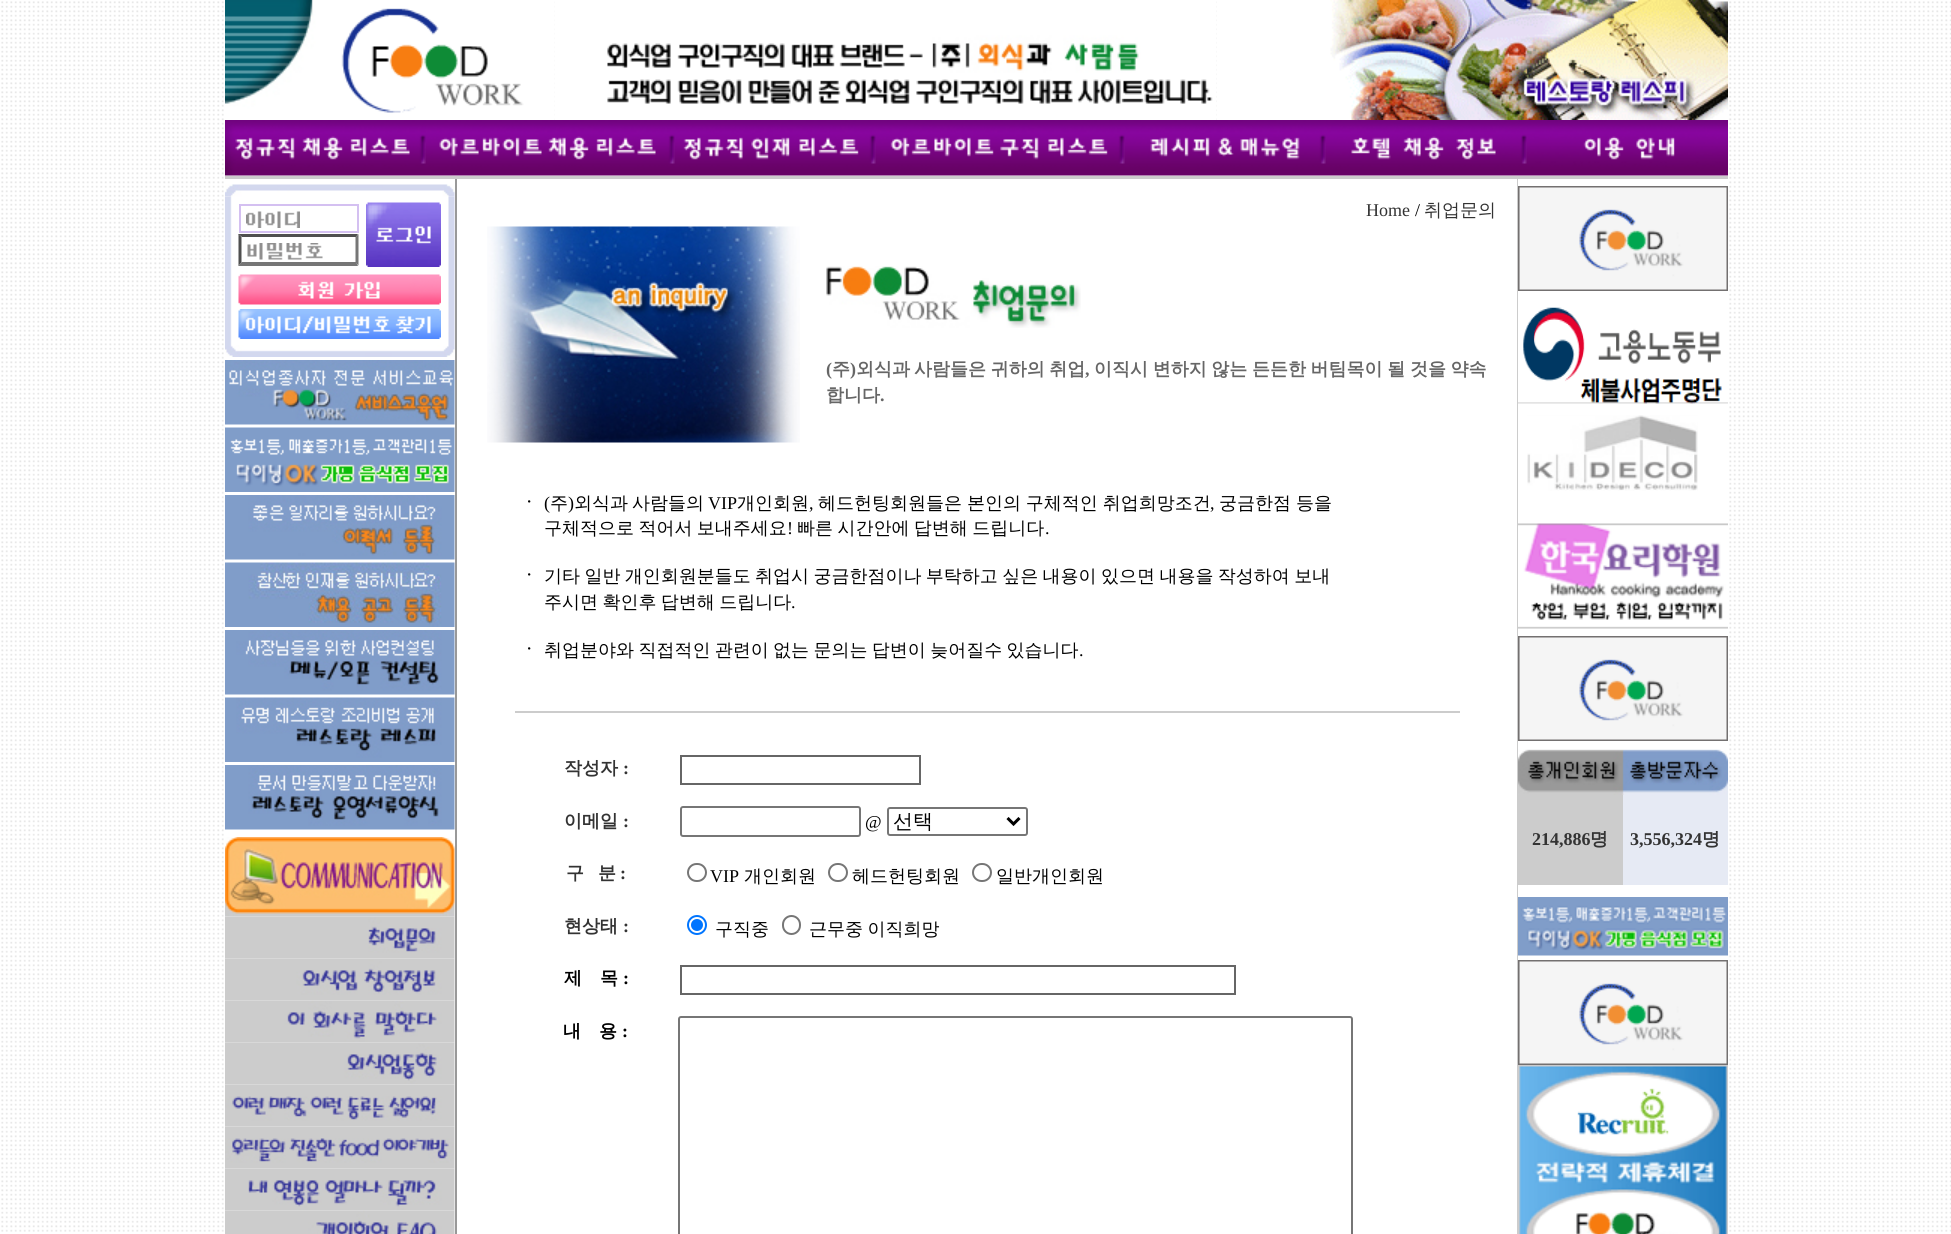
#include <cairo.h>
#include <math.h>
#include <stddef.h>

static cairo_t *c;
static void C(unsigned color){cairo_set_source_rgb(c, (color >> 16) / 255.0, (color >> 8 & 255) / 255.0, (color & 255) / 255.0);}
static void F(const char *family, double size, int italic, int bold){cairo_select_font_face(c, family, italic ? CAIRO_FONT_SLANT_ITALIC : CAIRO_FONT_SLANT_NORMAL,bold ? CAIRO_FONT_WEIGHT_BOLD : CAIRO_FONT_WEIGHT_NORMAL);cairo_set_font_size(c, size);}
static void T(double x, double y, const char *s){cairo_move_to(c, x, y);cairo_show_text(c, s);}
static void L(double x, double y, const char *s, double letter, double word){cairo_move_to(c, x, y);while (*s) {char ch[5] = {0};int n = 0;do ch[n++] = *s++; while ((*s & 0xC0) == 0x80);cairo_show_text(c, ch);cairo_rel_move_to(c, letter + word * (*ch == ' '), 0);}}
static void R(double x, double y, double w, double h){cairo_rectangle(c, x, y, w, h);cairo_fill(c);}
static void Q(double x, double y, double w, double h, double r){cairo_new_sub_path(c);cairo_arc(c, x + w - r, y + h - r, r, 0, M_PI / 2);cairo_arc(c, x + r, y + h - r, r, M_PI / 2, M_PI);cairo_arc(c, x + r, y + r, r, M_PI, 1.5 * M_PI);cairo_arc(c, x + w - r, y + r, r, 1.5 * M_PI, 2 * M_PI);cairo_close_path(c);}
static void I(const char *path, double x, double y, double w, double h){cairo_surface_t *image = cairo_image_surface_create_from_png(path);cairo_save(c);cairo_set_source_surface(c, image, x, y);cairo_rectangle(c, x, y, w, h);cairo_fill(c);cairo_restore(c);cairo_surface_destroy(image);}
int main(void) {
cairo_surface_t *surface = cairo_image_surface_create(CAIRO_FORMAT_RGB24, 1951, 1234);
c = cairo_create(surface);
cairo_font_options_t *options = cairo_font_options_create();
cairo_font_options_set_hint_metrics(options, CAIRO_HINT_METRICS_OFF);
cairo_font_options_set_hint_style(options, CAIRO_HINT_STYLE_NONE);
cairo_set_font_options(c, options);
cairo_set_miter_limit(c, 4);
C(0xffffff);
cairo_paint(c);
I("1.png",1,1,1950,1231);
I("2.png",225,0,328,120);
I("3.png",555,1,662,119);
I("4.png",1217,0,511,120);
I("5.png",225,120,201,56);
I("6.png",426,120,249,56);
I("7.png",675,120,201,56);
I("8.png",876,120,249,56);
I("9.png",1125,120,201,56);
I("10.png",1326,120,201,56);
I("11.png",1527,120,201,56);
C(0xffffff);
R(226,181,1290,1051);
C(0xcccccc);
R(225,176,1503,3);
C(0x999999);
R(455,179,2,1055);
I("13.png",225,196,230,149);
I("12.png",225,184,230,13);
I("14.png",246,211,54,17);
cairo_rectangle(c,240,205,118,27);
C(0xd4c0f1);
cairo_stroke(c);
I("15.png",366,202,75,65);
I("16.png",247,243,76,17);
C(0x4f4f4f);
cairo_new_path(c);
cairo_move_to(c,238,234);
cairo_line_to(c,358,234);
cairo_line_to(c,356,237);
cairo_line_to(c,242,237);
cairo_close_path(c);
cairo_fill(c);
C(0x767676);
cairo_new_path(c);
cairo_move_to(c,358.5,234);
cairo_line_to(c,358.5,265.5);
cairo_line_to(c,355.5,262.5);
cairo_line_to(c,355.5,237);
cairo_close_path(c);
cairo_fill(c);
cairo_new_path(c);
cairo_move_to(c,358,266);
cairo_line_to(c,238,266);
cairo_line_to(c,242,262);
cairo_line_to(c,356,262);
cairo_close_path(c);
cairo_fill(c);
C(0x4f4f4f);
cairo_new_path(c);
cairo_move_to(c,238.5,265.5);
cairo_line_to(c,238.5,234);
cairo_line_to(c,241.5,237);
cairo_line_to(c,241.5,262.5);
cairo_close_path(c);
cairo_fill(c);
I("17.png",238,274,203,31);
I("18.png",238,309,203,30);
I("19.png",225,345,230,12);
I("20.png",225,360,230,65);
I("21.png",225,427,230,65);
I("22.png",225,495,230,65);
I("23.png",225,562,230,65);
I("24.png",225,630,230,65);
I("25.png",225,697,230,65);
I("26.png",225,765,230,65);
I("27.png",225,837,230,80);
I("28.png",225,916,230,43);
I("29.png",225,958,230,43);
I("30.png",225,1000,230,43);
I("31.png",225,1042,230,43);
I("32.png",225,1084,230,43);
I("33.png",225,1126,230,43);
I("34.png",225,1168,230,43);
I("35.png",225,1210,230,24);
F("Liberation Serif",18,0,0);
C(0x333333);
T(1366,216,"Home");
C(0x000000);
T(1415,216,"/");
F("WenQuanYi Zen Hei Medium",18,0,0);
C(0x333333);
T(1424,216,"취업문의");
I("36.png",487,226,313,217);
I("37.png",826,266,255,62);
F("Liberation Serif",18,0,1);
C(0x666666);
T(826,375,"(");
F("WenQuanYi Zen Hei",18,0,1);
T(832,375,"주");
F("Liberation Serif",18,0,1);
T(850,375,")");
F("WenQuanYi Zen Hei",18,0,1);
T(856,375,"외식과");
L(914,375,"사람들은 귀하의 취업",0,-.75);
F("Liberation Serif",18,0,1);
T(1085,375,",");
F("WenQuanYi Zen Hei",18,0,1);
L(1094,375,"이직시 변하지 않는 든든한 버팀목이 될 것을 약속",0,-.75);
T(826,401,"합니다");
F("Liberation Serif",18,0,1);
T(880,401,".");
C(0xcccccc);
R(515,711,945,2);
F("WenQuanYi Zen Hei",18,0,1);
C(0x000000);
T(520,509,"ㆍ");
F("Liberation Serif",18,0,0);
T(544,509,"(");
F("WenQuanYi Zen Hei Medium",18,0,0);
T(550,509,"주");
F("Liberation Serif",18,0,0);
T(568,509,")");
F("WenQuanYi Zen Hei Medium",18,0,0);
T(574,509,"외식과");
T(632,509,"사람들의");
F("Liberation Serif",18,0,0);
T(708,509,"VIP");
F("WenQuanYi Zen Hei Medium",18,0,0);
T(737,509,"개인회원");
F("Liberation Serif",18,0,0);
T(809,509,",");
F("WenQuanYi Zen Hei Medium",18,0,0);
L(818,509,"헤드헌팅회원들은 본인의 구체적인 취업희망조건",0,-.5);
F("Liberation Serif",18,0,0);
T(1210,509,",");
F("WenQuanYi Zen Hei Medium",18,0,0);
L(1219,509,"궁금한점 등을",0,-.5);
L(544,534,"구체적으로 적어서 보내주세요",0,-1);
F("Liberation Serif",18,0,0);
T(787,534,"!");
F("WenQuanYi Zen Hei Medium",18,0,0);
L(797,534,"빠른 시간안에 답변해 드립니다",0,-1);
F("Liberation Serif",18,0,0);
T(1045,534,".");
F("WenQuanYi Zen Hei",18,0,1);
T(520,582,"ㆍ");
F("WenQuanYi Zen Hei Medium",18,0,0);
L(544,582,"기타 일반 개인회원분들도",0,-1);
L(755,582,"취업시 궁금한점이나 부탁하고 싶은 내용이 있으면 내용을 작성하여 보내",0,-1);
L(544,608,"주시면 확인후 답변해 드립니다",0,-1);
F("Liberation Serif",18,0,0);
T(791,608,".");
F("WenQuanYi Zen Hei",18,0,1);
T(520,656,"ㆍ");
F("WenQuanYi Zen Hei Medium",18,0,0);
L(544,656,"취업분야와 직접적인 관련이",0,-1);
L(773,656,"없는 문의는 답변이 늦어질수 있습니다",0,-1);
F("Liberation Serif",18,0,0);
T(1079,656,".");
F("WenQuanYi Zen Hei",18,0,1);
C(0x333333);
T(564,774,"작성자");
F("Liberation Serif",18,0,1);
T(623,774,":");
cairo_rectangle(c,681,756,239,28);
C(0x666666);
cairo_stroke(c);
F("WenQuanYi Zen Hei",18,0,1);
C(0x333333);
T(564,827,"이메일");
F("Liberation Serif",18,0,1);
T(623,827,":");
Q(681,807,179,29,2);
C(0x767676);
cairo_stroke(c);
F("Liberation Serif",18,0,0);
C(0x000000);
T(865,828,"@");
Q(888,808,139,27,2);
C(0x767676);
cairo_stroke(c);
cairo_new_path(c);
cairo_move_to(c,1007.5,818);
cairo_line_to(c,1013.5,824);
cairo_line_to(c,1019.5,818);
C(0x000000);
cairo_set_line_width(c,3);
cairo_stroke(c);
F("WenQuanYi Zen Hei Medium",20,0,0);
T(893,828,"선택");
F("WenQuanYi Zen Hei",18,0,1);
C(0x333333);
T(566,879,"구");
T(598,879,"분");
F("Liberation Serif",18,0,1);
T(620,879,":");
Q(688,864,18,17,8.5);
C(0x767676);
cairo_set_line_width(c,2);
cairo_stroke(c);
F("Liberation Serif",18,0,0);
C(0x000000);
T(710,882,"VIP");
F("WenQuanYi Zen Hei Medium",18,0,0);
T(744,882,"개인회원");
Q(829,864,18,17,8.5);
C(0x767676);
cairo_stroke(c);
C(0x000000);
T(852,882,"헤드헌팅회원");
Q(973,864,18,17,8.5);
C(0x767676);
cairo_stroke(c);
C(0x000000);
T(996,882,"일반개인회원");
F("WenQuanYi Zen Hei",18,0,1);
C(0x333333);
T(564,932,"현상태");
F("Liberation Serif",18,0,1);
T(623,932,":");
cairo_new_path(c);
cairo_arc(c,697,925,9,0,2 * M_PI);
C(0x0075ff);
cairo_stroke(c);
cairo_arc(c,697,925,6,0,2 * M_PI);
cairo_fill(c);
F("WenQuanYi Zen Hei Medium",18,0,0);
C(0x000000);
T(715,935,"구직중");
Q(783,916,17,18,8.5);
C(0x767676);
cairo_stroke(c);
C(0x000000);
L(809,935,"근무중 이직희망",0,-1);
F("WenQuanYi Zen Hei",18,0,1);
T(564,984,"제");
T(600,984,"목");
F("Liberation Serif",18,0,1);
T(623,984,":");
cairo_rectangle(c,681,966,554,28);
C(0x666666);
cairo_stroke(c);
F("WenQuanYi Zen Hei",18,0,1);
C(0x000000);
T(563,1037,"내");
T(599,1037,"용");
F("Liberation Serif",18,0,1);
T(622,1037,":");
Q(679,1017,673,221,2);
C(0x767676);
cairo_stroke(c);
C(0xcccccc);
R(1517,179,1,1055);
C(0xffffff);
R(1518,181,209,779);
I("38.png",1518,186,210,105);
I("39.png",1518,307,210,97);
I("40.png",1527,415,171,76);
I("41.png",1518,523,210,106);
I("38.png",1518,636,210,105);
I("42.png",1518,749,210,46);
C(0xcccccc);
R(1518,795,105,90);
C(0x333333);
T(1532,845,"214,886");
F("WenQuanYi Zen Hei",18,0,1);
T(1590,845,"명");
C(0xe6eaf4);
R(1623,795,105,90);
F("Liberation Serif",18,0,1);
C(0x333333);
T(1630,845,"3,556,324");
F("WenQuanYi Zen Hei",18,0,1);
T(1702,845,"명");
I("43.png",1518,897,210,59);
I("38.png",1518,960,210,105);
I("44.png",1518,1065,210,169);
cairo_surface_write_to_png(surface, "o.png");
cairo_font_options_destroy(options);
cairo_destroy(c);
cairo_surface_destroy(surface);
return 0;
}
